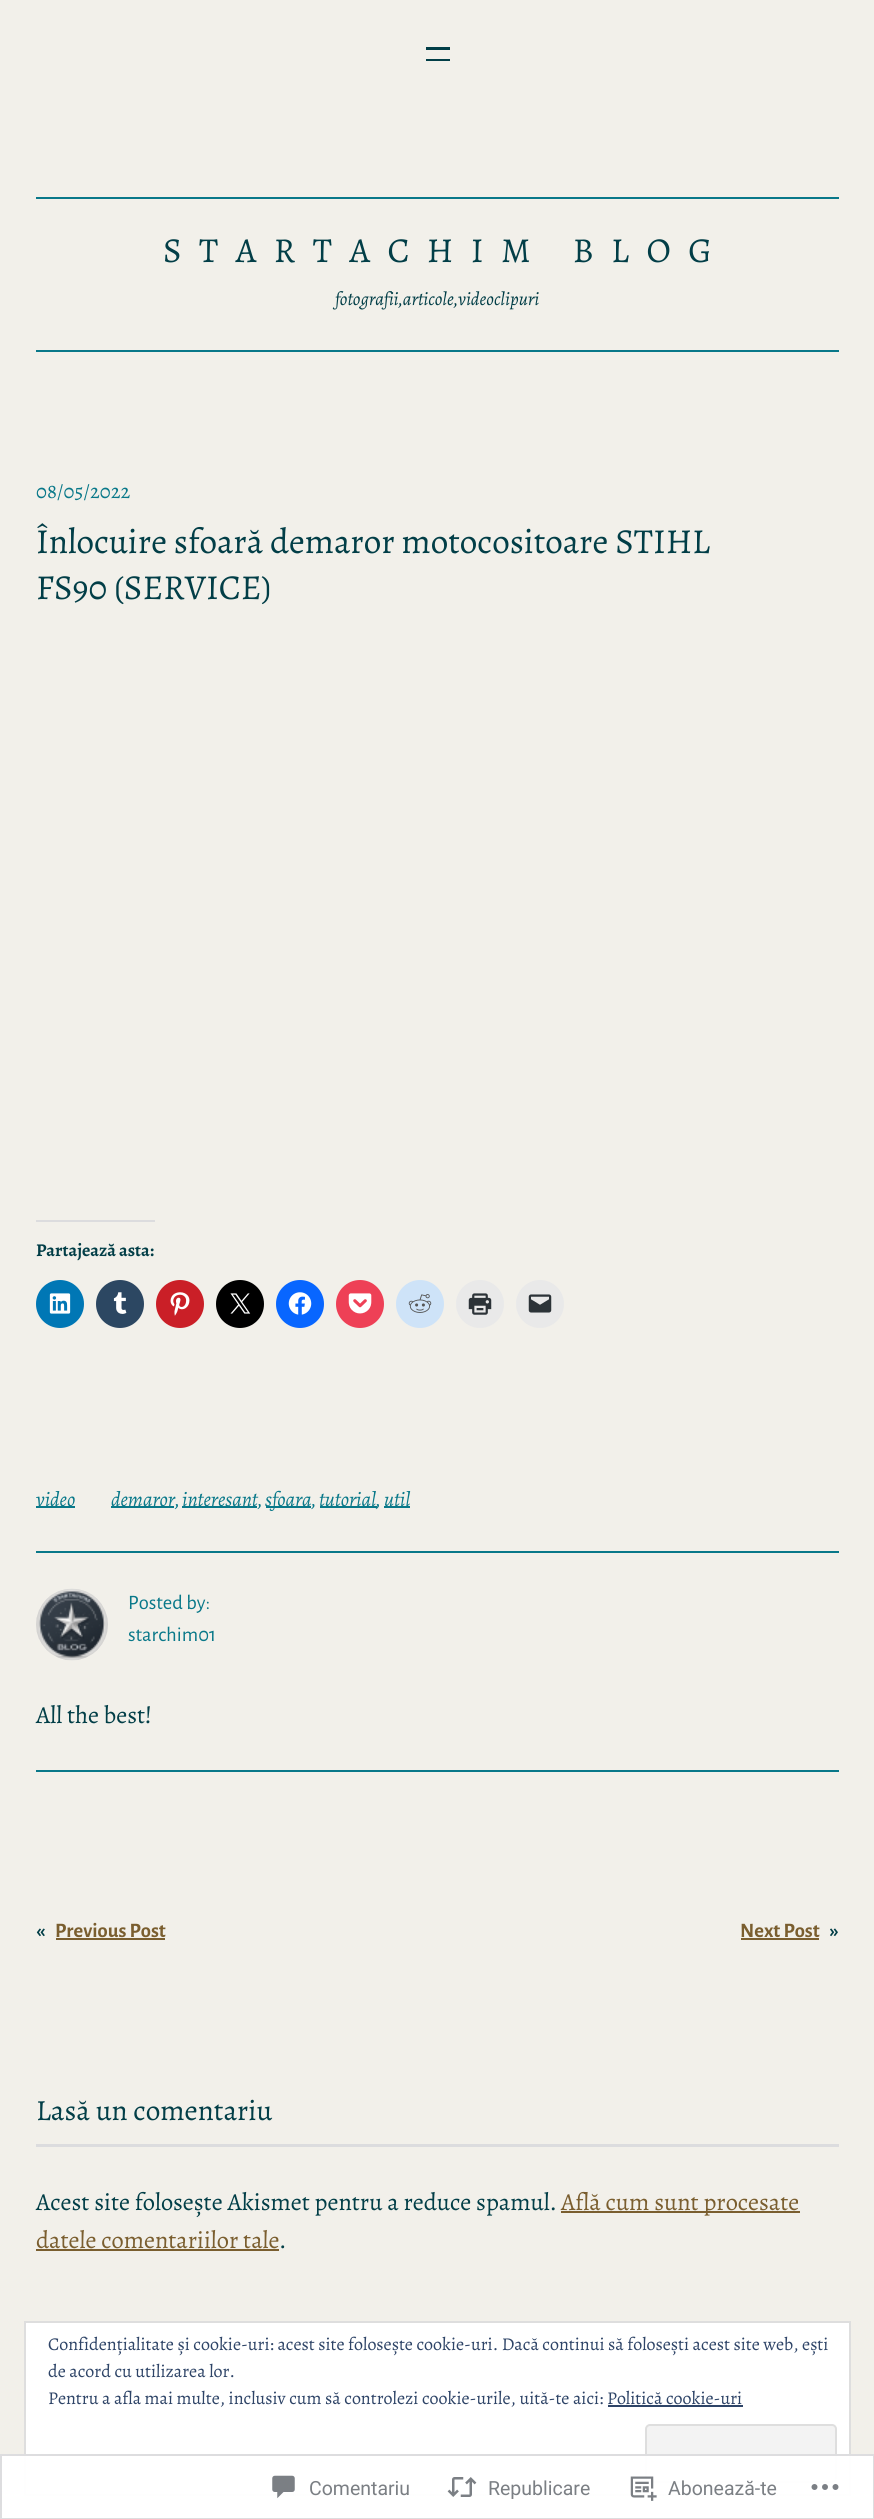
#include <cairo.h>
#include <math.h>
#include <stddef.h>

static cairo_t *c;
static void C(unsigned color){cairo_set_source_rgb(c, (color >> 16) / 255.0, (color >> 8 & 255) / 255.0, (color & 255) / 255.0);}
static void F(const char *family, double size, int italic, int bold){cairo_select_font_face(c, family, italic ? CAIRO_FONT_SLANT_ITALIC : CAIRO_FONT_SLANT_NORMAL,bold ? CAIRO_FONT_WEIGHT_BOLD : CAIRO_FONT_WEIGHT_NORMAL);cairo_set_font_size(c, size);}
static void T(double x, double y, const char *s){cairo_move_to(c, x, y);cairo_show_text(c, s);}
static void L(double x, double y, const char *s, double letter, double word){cairo_move_to(c, x, y);while (*s) {char ch[5] = {0};int n = 0;do ch[n++] = *s++; while ((*s & 0xC0) == 0x80);cairo_show_text(c, ch);cairo_rel_move_to(c, letter + word * (*ch == ' '), 0);}}
static void R(double x, double y, double w, double h){cairo_rectangle(c, x, y, w, h);cairo_fill(c);}
static void Q(double x, double y, double w, double h, double r){cairo_new_sub_path(c);cairo_arc(c, x + w - r, y + h - r, r, 0, M_PI / 2);cairo_arc(c, x + r, y + h - r, r, M_PI / 2, M_PI);cairo_arc(c, x + r, y + r, r, M_PI, 1.5 * M_PI);cairo_arc(c, x + w - r, y + r, r, 1.5 * M_PI, 2 * M_PI);cairo_close_path(c);}
static void I(const char *path, double x, double y, double w, double h){cairo_surface_t *image = cairo_image_surface_create_from_png(path);cairo_save(c);cairo_set_source_surface(c, image, x, y);cairo_rectangle(c, x, y, w, h);cairo_fill(c);cairo_restore(c);cairo_surface_destroy(image);}
int main(void) {
cairo_surface_t *surface = cairo_image_surface_create(CAIRO_FORMAT_RGB24, 874, 2519);
c = cairo_create(surface);
cairo_font_options_t *options = cairo_font_options_create();
cairo_font_options_set_hint_metrics(options, CAIRO_HINT_METRICS_OFF);
cairo_font_options_set_hint_style(options, CAIRO_HINT_STYLE_NONE);
cairo_set_font_options(c, options);
cairo_set_miter_limit(c, 4);
C(0xf2f0ea);
cairo_paint(c);
C(0x023e47);
R(426,47,24,3);
R(426,59,24,2);
C(0x097889);
R(36,197,803,2);
F("Alegreya",35.1,0,0);
C(0x023e47);
L(163,262,"STARTACHIM BLOG",17.5,0);
F("Alegreya",18.75,1,0);
T(335,305,"fotografii,articole,videoclipuri");
C(0x097889);
R(36,350,803,2);
F("Alegreya",20.5,0,0);
T(36,498,"08/05/2022");
F("Alegreya",35.1,0,0);
C(0x023e47);
T(36,553,"Înlocuire sfoară demaror motocositoare STIHL");
T(36,599,"FS90 (SERVICE)");
C(0xdcdcde);
R(36,1220,119,2);
F("Alegreya",18,0,1);
C(0x023e47);
T(36,1256,"Partajează asta:");
C(0x0077b5);
cairo_new_path(c);
cairo_arc(c,60,1304,24,0,2 * M_PI);
cairo_fill(c);
I("1.png",49,1293,22,21);
C(0x2c4762);
cairo_arc(c,120,1304,24,0,2 * M_PI);
cairo_fill(c);
I("2.png",113,1292,14,22);
C(0xca1f27);
cairo_arc(c,180,1304,24,0,2 * M_PI);
cairo_fill(c);
I("3.png",170,1292,20,24);
C(0x000000);
cairo_arc(c,240,1304,24,0,2 * M_PI);
cairo_fill(c);
I("4.png",230,1293,21,21);
C(0x0866ff);
cairo_arc(c,300,1304,24,0,2 * M_PI);
cairo_fill(c);
I("5.png",288,1292,24,23);
C(0xee4056);
cairo_arc(c,360,1304,24,0,2 * M_PI);
cairo_fill(c);
I("6.png",348,1293,24,21);
C(0xcee3f8);
cairo_arc(c,420,1304,24,0,2 * M_PI);
cairo_fill(c);
I("7.png",408,1294,24,19);
C(0xe9e9e9);
cairo_arc(c,480,1304,24,0,2 * M_PI);
cairo_fill(c);
I("8.png",468,1293,24,22);
cairo_arc(c,540,1304,24,0,2 * M_PI);
cairo_fill(c);
I("9.png",528,1294,24,19);
C(0x097889);
R(36,1506,39,2);
F("Alegreya",20.5,1,0);
T(36,1506,"video");
R(111,1506,63,2);
T(111,1506,"demaror,");
R(182,1506,75,2);
T(182,1506,"interesant,");
R(266,1506,45,2);
T(265,1506,"sfoara,");
R(320,1506,57,2);
T(319,1506,"tutorial,");
R(384,1506,26,2);
T(384,1506,"util");
R(36,1551,803,2);
I("10.png",36,1588,72,73);
F("Alegreya Sans",20.5,0,0);
T(128,1609,"Posted by:");
T(128,1641,"starchim01");
F("Alegreya",24.4,0,0);
C(0x023e47);
T(36,1723,"All the best!");
C(0x097889);
R(36,1770,803,2);
F("Alegreya Sans",20.5,0,1);
C(0x023e47);
T(36,1937,"«");
C(0x7a5e2f);
T(55,1937,"Previous Post");
R(56,1938,109,2);
T(740,1937,"Next Post");
R(741,1938,78,2);
C(0x023e47);
T(830,1937,"»");
F("Alegreya",29.25,0,0);
T(36,2120,"Lasă un comentariu");
C(0xdcdcde);
R(36,2144,803,3);
F("Alegreya",24.4,0,0);
C(0x023e47);
T(36,2210,"Acest site folosește Akismet pentru a reduce spamul.");
C(0x7a5e2f);
R(561,2211,239,2);
T(561,2210,"Află cum sunt procesate");
T(36,2248,"datele comentariilor tale");
R(36,2249,243,2);
C(0x023e47);
T(279,2248,".");
C(0xffffff);
cairo_rectangle(c,25,2322,825,173);
cairo_fill_preserve(c);
C(0xdedede);
cairo_stroke(c);
F("Alegreya",18,0,0);
C(0x2e4467);
T(48,2350,"Confidențialitate și cookie-uri: acest site folosește cookie-uri. Dacă continui să folosești acest site web, ești");
T(48,2377,"de acord cu utilizarea lor.");
T(48,2404,"Pentru a afla mai multe, inclusiv cum să controlezi cookie-urile, uită-te aici: Politică cookie-uri");
R(608,2405,135,2);
C(0xf3f3f3);
Q(646,2425,190,57,4);
cairo_fill_preserve(c);
C(0xdedede);
cairo_stroke(c);
cairo_set_source_rgba(c,1,1,1,0.98);
R(0,2454,874,65);
cairo_rectangle(c,1,2455,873,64);
cairo_set_source_rgba(c,0.863,0.863,0.871,0.98);
cairo_stroke(c);
I("11.png",272,2475,23,24);
F("Roboto",19.5,0,0);
C(0x7b7f84);
T(309,2495,"Comentariu");
I("12.png",447,2477,30,20);
T(488,2495,"Republicare");
I("13.png",630,2476,27,25);
T(668,2495,"Abonează-te");
I("14.png",811,2484,28,6);
cairo_surface_write_to_png(surface, "o.png");
cairo_font_options_destroy(options);
cairo_destroy(c);
cairo_surface_destroy(surface);
return 0;
}
